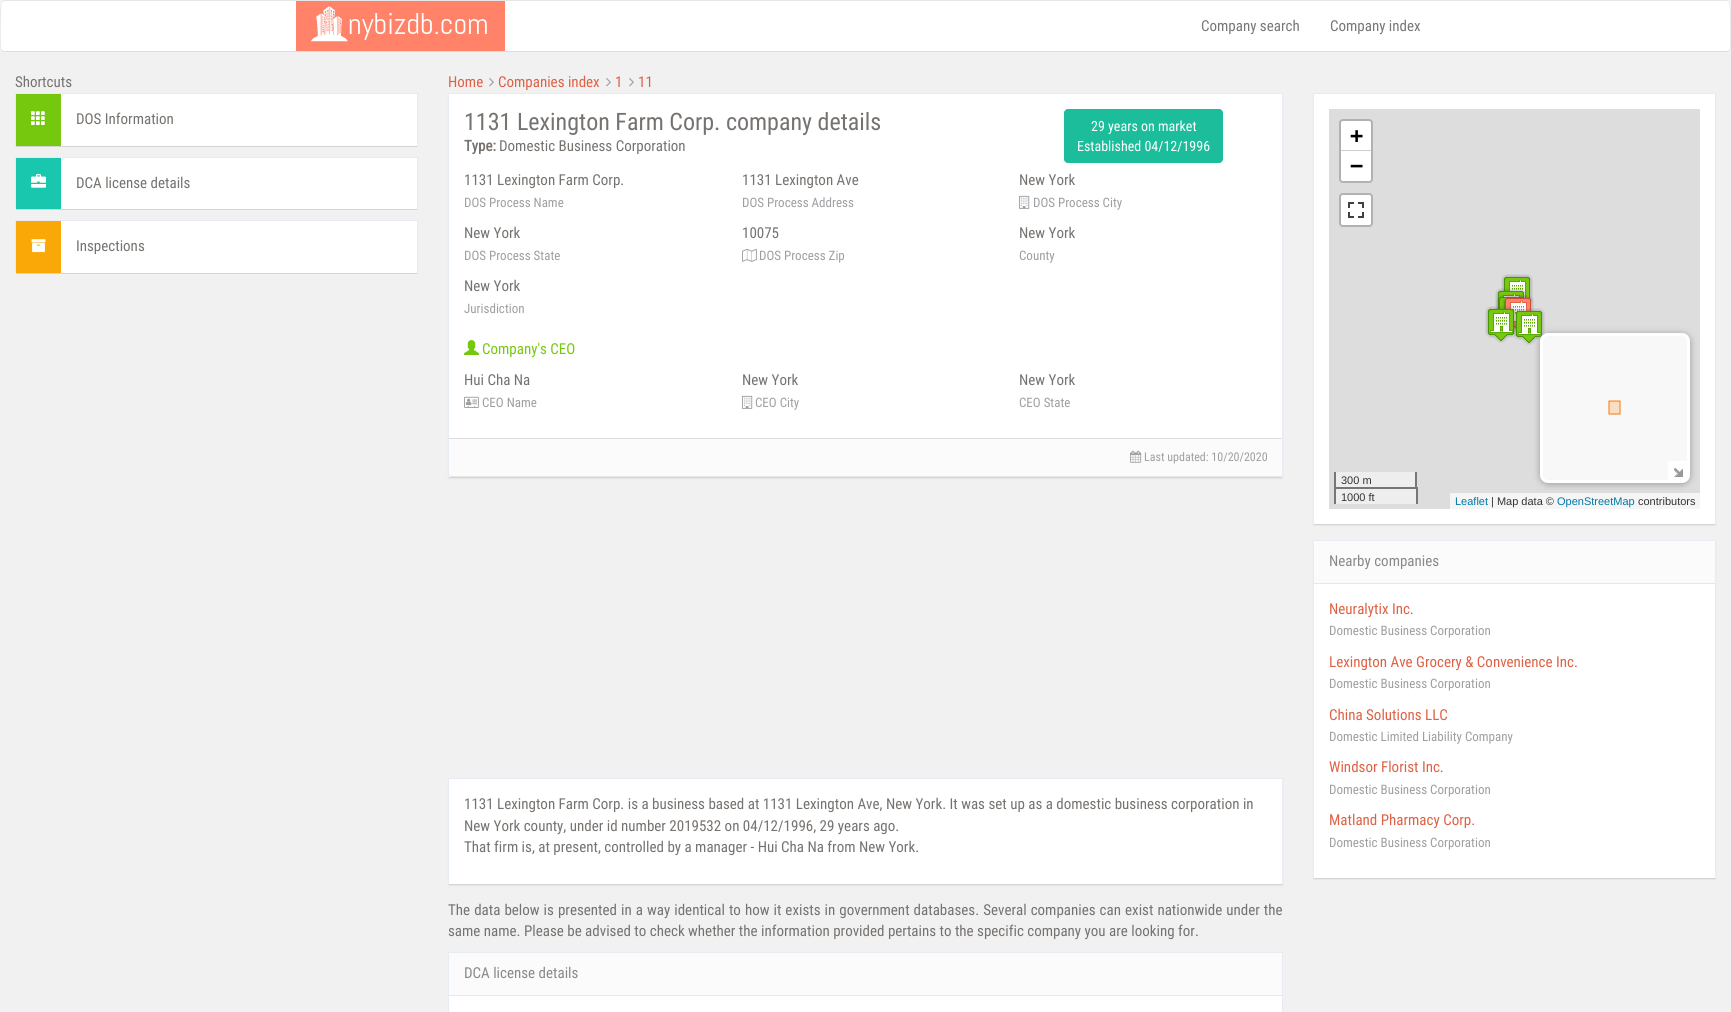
#include <cairo.h>
#include <math.h>
#include <stddef.h>

static cairo_t *c;
static void C(unsigned color){cairo_set_source_rgb(c, (color >> 16) / 255.0, (color >> 8 & 255) / 255.0, (color & 255) / 255.0);}
static void F(const char *family, double size, int italic, int bold){cairo_select_font_face(c, family, italic ? CAIRO_FONT_SLANT_ITALIC : CAIRO_FONT_SLANT_NORMAL,bold ? CAIRO_FONT_WEIGHT_BOLD : CAIRO_FONT_WEIGHT_NORMAL);cairo_set_font_size(c, size);}
static void T(double x, double y, const char *s){cairo_move_to(c, x, y);cairo_show_text(c, s);}
static void L(double x, double y, const char *s, double letter, double word){cairo_move_to(c, x, y);while (*s) {char ch[5] = {0};int n = 0;do ch[n++] = *s++; while ((*s & 0xC0) == 0x80);cairo_show_text(c, ch);cairo_rel_move_to(c, letter + word * (*ch == ' '), 0);}}
static void R(double x, double y, double w, double h){cairo_rectangle(c, x, y, w, h);cairo_fill(c);}
static void Q(double x, double y, double w, double h, double r){cairo_new_sub_path(c);cairo_arc(c, x + w - r, y + h - r, r, 0, M_PI / 2);cairo_arc(c, x + r, y + h - r, r, M_PI / 2, M_PI);cairo_arc(c, x + r, y + r, r, M_PI, 1.5 * M_PI);cairo_arc(c, x + w - r, y + r, r, 1.5 * M_PI, 2 * M_PI);cairo_close_path(c);}
static void S(double x, double y, double w, double h, double r, double blur, double alpha){cairo_push_group_with_content(c, CAIRO_CONTENT_ALPHA);cairo_set_operator(c, CAIRO_OPERATOR_SOURCE);for (int i = 15; i >= -15 && fmin(w, h) + blur * i / 3 > 0; i -= 2) {double e = blur * i / 6;cairo_set_source_rgba(c, 0, 0, 0, alpha * erfc((i - 1) / 8.5) / 2);Q(x - e, y - e, w + 2 * e, h + 2 * e, fmax(0, fmin(r + e + blur * .6, fmin(w, h) / 2 + e)));cairo_fill(c);}cairo_pattern_t *soft = cairo_pop_group(c);cairo_mask(c, soft);cairo_pattern_destroy(soft);}
static void I(const char *path, double x, double y, double w, double h){cairo_surface_t *image = cairo_image_surface_create_from_png(path);cairo_save(c);cairo_set_source_surface(c, image, x, y);cairo_rectangle(c, x, y, w, h);cairo_fill(c);cairo_restore(c);cairo_surface_destroy(image);}
int main(void) {
cairo_surface_t *surface = cairo_image_surface_create(CAIRO_FORMAT_RGB24, 1731, 1012);
c = cairo_create(surface);
cairo_font_options_t *options = cairo_font_options_create();
cairo_font_options_set_hint_metrics(options, CAIRO_HINT_METRICS_OFF);
cairo_font_options_set_hint_style(options, CAIRO_HINT_STYLE_NONE);
cairo_set_font_options(c, options);
cairo_set_miter_limit(c, 4);
C(0xf1f1f1);
cairo_paint(c);
C(0xffffff);
Q(0,0,1731,52,4);
cairo_fill(c);
cairo_new_path(c);
cairo_move_to(c,1729.5,50.5);
cairo_line_to(c,1727,51.5);
cairo_line_to(c,4,51.5);
cairo_line_to(c,1.5,50.5);
C(0xdddddd);
cairo_set_line_width(c,1);
cairo_stroke(c);
cairo_new_path(c);
cairo_move_to(c,1.5,50.5);
cairo_line_to(c,.5,48.5);
cairo_curve_to(c,0,44,0,3.5,1.5,2);
cairo_line_to(c,4,.5);
cairo_line_to(c,1727,.5);
cairo_line_to(c,1729.5,2);
cairo_curve_to(c,1731,3.5,1731,44,1730.5,48.5);
cairo_line_to(c,1729.5,50.5);
C(0xe7e7e7);
cairo_stroke(c);
C(0xff8269);
R(296,1,209,50);
I("1.png",311,6,176,36);
F("Roboto Condensed",15,0,0);
C(0x777777);
T(1201,31,"Company search");
T(1330,31,"Company index");
C(0x76726f);
T(15,87,"Shortcuts");
C(0xffffff);
R(15,94,403,53);
C(0xe7ecf3);
R(15,93,403,1);
cairo_new_path(c);
cairo_move_to(c,418,93);
cairo_line_to(c,418,147);
cairo_line_to(c,417,146);
cairo_line_to(c,417,94);
cairo_close_path(c);
cairo_fill(c);
cairo_set_source_rgba(c,0,0,0,0.17);
cairo_new_path(c);
cairo_move_to(c,418,147);
cairo_line_to(c,15,147);
cairo_line_to(c,16,146);
cairo_line_to(c,417,146);
cairo_close_path(c);
cairo_fill(c);
C(0xe7ecf3);
cairo_new_path(c);
cairo_move_to(c,15,147);
cairo_line_to(c,15,93);
cairo_line_to(c,16,94);
cairo_line_to(c,16,146);
cairo_close_path(c);
cairo_fill(c);
C(0x76c80e);
R(16,94,45,52);
I("2.png",31,111,14,14);
C(0x76726f);
T(76,124,"DOS Information");
C(0xffffff);
R(15,158,403,52);
C(0xe7ecf3);
R(15,157,403,1);
cairo_new_path(c);
cairo_move_to(c,418,157);
cairo_line_to(c,418,210);
cairo_line_to(c,417,209);
cairo_line_to(c,417,158);
cairo_close_path(c);
cairo_fill(c);
cairo_set_source_rgba(c,0,0,0,0.17);
cairo_new_path(c);
cairo_move_to(c,418,210);
cairo_line_to(c,15,210);
cairo_line_to(c,16,209);
cairo_line_to(c,417,209);
cairo_close_path(c);
cairo_fill(c);
C(0xe7ecf3);
cairo_new_path(c);
cairo_move_to(c,15,210);
cairo_line_to(c,15,157);
cairo_line_to(c,16,158);
cairo_line_to(c,16,209);
cairo_close_path(c);
cairo_fill(c);
C(0x19c7ae);
R(16,158,45,51);
I("3.png",31,174,15,14);
C(0x76726f);
T(76,188,"DCA license details");
C(0xffffff);
R(15,221,403,53);
C(0xe7ecf3);
R(15,220,403,1);
cairo_new_path(c);
cairo_move_to(c,418,220);
cairo_line_to(c,418,274);
cairo_line_to(c,417,273);
cairo_line_to(c,417,221);
cairo_close_path(c);
cairo_fill(c);
cairo_set_source_rgba(c,0,0,0,0.17);
cairo_new_path(c);
cairo_move_to(c,418,274);
cairo_line_to(c,15,274);
cairo_line_to(c,16,273);
cairo_line_to(c,417,273);
cairo_close_path(c);
cairo_fill(c);
C(0xe7ecf3);
cairo_new_path(c);
cairo_move_to(c,15,274);
cairo_line_to(c,15,220);
cairo_line_to(c,16,221);
cairo_line_to(c,16,273);
cairo_close_path(c);
cairo_fill(c);
C(0xfaa807);
R(16,221,45,52);
I("4.png",31,239,15,14);
C(0x76726f);
T(76,251,"Inspections");
C(0xde6145);
T(448,87,"Home");
I("5.png",489,78,5,9);
T(498,87,"Companies index");
I("5.png",606,78,5,9);
T(615,87,"1");
I("5.png",629,78,5,9);
T(638,87,"11");
C(0x000000);
S(448,94,835,385,0,.5,.05);
C(0xffffff);
R(448,94,835,384);
C(0xe7ecf3);
R(448,93,835,1);
cairo_new_path(c);
cairo_move_to(c,1283,93);
cairo_line_to(c,1283,478);
cairo_line_to(c,1282,477);
cairo_line_to(c,1282,94);
cairo_close_path(c);
cairo_fill(c);
cairo_set_source_rgba(c,0,0,0,0.17);
cairo_new_path(c);
cairo_move_to(c,1283,478);
cairo_line_to(c,448,478);
cairo_line_to(c,449,477);
cairo_line_to(c,1282,477);
cairo_close_path(c);
cairo_fill(c);
C(0xe7ecf3);
cairo_new_path(c);
cairo_move_to(c,448,478);
cairo_line_to(c,448,93);
cairo_line_to(c,449,94);
cairo_line_to(c,449,477);
cairo_close_path(c);
cairo_fill(c);
F("Roboto Condensed",24,0,0);
C(0x76726f);
T(464,130,"1131 Lexington Farm Corp. company details");
F("Roboto Condensed",15,0,1);
T(464,151,"Type:");
F("Roboto Condensed",15,0,0);
T(499,151,"Domestic Business Corporation");
C(0x1cbd9b);
Q(1064,109,159,54,4);
cairo_fill(c);
F("Roboto Condensed",14,0,0);
C(0xffffff);
T(1091,131,"29 years on market");
T(1077,151,"Established 04/12/1996");
F("Roboto Condensed",15,0,0);
C(0x76726f);
T(464,185,"1131 Lexington Farm Corp.");
F("Roboto Condensed",13,0,0);
C(0x9d9fa2);
T(464,207,"DOS Process Name");
F("Roboto Condensed",15,0,0);
C(0x76726f);
T(742,185,"1131 Lexington Ave");
F("Roboto Condensed",13,0,0);
C(0x9d9fa2);
T(742,207,"DOS Process Address");
F("Roboto Condensed",15,0,0);
C(0x76726f);
T(1019,185,"New York");
I("6.png",1019,195,11,14);
F("Roboto Condensed",13,0,0);
C(0x9d9fa2);
T(1033,207,"DOS Process City");
F("Roboto Condensed",15,0,0);
C(0x76726f);
T(464,238,"New York");
F("Roboto Condensed",13,0,0);
C(0x9d9fa2);
T(464,260,"DOS Process State");
F("Roboto Condensed",15,0,0);
C(0x76726f);
T(742,238,"10075");
I("7.png",742,248,15,14);
F("Roboto Condensed",13,0,0);
C(0x9d9fa2);
T(759,260,"DOS Process Zip");
F("Roboto Condensed",15,0,0);
C(0x76726f);
T(1019,238,"New York");
F("Roboto Condensed",13,0,0);
C(0x9d9fa2);
T(1019,260,"County");
F("Roboto Condensed",15,0,0);
C(0x76726f);
T(464,291,"New York");
F("Roboto Condensed",13,0,0);
C(0x9d9fa2);
T(464,313,"Jurisdiction");
I("8.png",464,340,15,15);
F("Roboto Condensed",15,0,0);
C(0x76c80e);
T(482,354,"Company's CEO");
C(0x76726f);
T(464,385,"Hui Cha Na");
I("9.png",464,396,15,12);
F("Roboto Condensed",13,0,0);
C(0x9d9fa2);
T(482,407,"CEO Name");
F("Roboto Condensed",15,0,0);
C(0x76726f);
T(742,385,"New York");
I("6.png",742,395,11,14);
F("Roboto Condensed",13,0,0);
C(0x9d9fa2);
T(755,407,"CEO City");
F("Roboto Condensed",15,0,0);
C(0x76726f);
T(1019,385,"New York");
F("Roboto Condensed",13,0,0);
C(0x9d9fa2);
T(1019,407,"CEO State");
C(0xfbfbfb);
cairo_new_path(c);
cairo_move_to(c,449,438);
cairo_line_to(c,1282,438);
cairo_line_to(c,1282,474);
cairo_curve_to(c,1282,475.5,1280.5,477,1279,477);
cairo_line_to(c,452,477);
cairo_curve_to(c,450.5,477,449,475.5,449,474);
cairo_close_path(c);
cairo_fill(c);
C(0xdddddd);
R(449,438,833,1);
C(0xe7e7e7);
cairo_new_path(c);
cairo_move_to(c,452,477);
cairo_line_to(c,1279,477);
cairo_curve_to(c,1281,477,1282,476,1282,474);
cairo_curve_to(c,1282,475,1281,476,1279,476);
cairo_line_to(c,452,476);
cairo_curve_to(c,450,476,449,475,449,474);
cairo_curve_to(c,449,476,450,477,452,477);
cairo_close_path(c);
cairo_fill(c);
I("10.png",1130,450,12,13);
F("Roboto Condensed",12,0,0);
C(0x9d9fa2);
T(1144,461,"Last updated: 10/20/2020");
C(0x000000);
S(448,779,835,107,0,.5,.05);
C(0xffffff);
R(448,779,835,106);
C(0xe7ecf3);
R(448,778,835,1);
cairo_new_path(c);
cairo_move_to(c,1283,778);
cairo_line_to(c,1283,885);
cairo_line_to(c,1282,884);
cairo_line_to(c,1282,779);
cairo_close_path(c);
cairo_fill(c);
cairo_set_source_rgba(c,0,0,0,0.17);
cairo_new_path(c);
cairo_move_to(c,1283,885);
cairo_line_to(c,448,885);
cairo_line_to(c,449,884);
cairo_line_to(c,1282,884);
cairo_close_path(c);
cairo_fill(c);
C(0xe7ecf3);
cairo_new_path(c);
cairo_move_to(c,448,885);
cairo_line_to(c,448,778);
cairo_line_to(c,449,779);
cairo_line_to(c,449,884);
cairo_close_path(c);
cairo_fill(c);
F("Roboto Condensed",15,0,0);
C(0x76726f);
T(464,809,"1131 Lexington Farm Corp. is a business based at 1131 Lexington Ave, New York. It was set up as a domestic business corporation in");
T(464,831,"New York county, under id number 2019532 on 04/12/1996, 29 years ago.");
T(464,852,"That firm is, at present, controlled by a manager - Hui Cha Na from New York.");
L(448,915,"The data below is presented in a way identical to how it exists in government databases. Several companies can exist nationwide under the",0,.6);
T(448,936,"same name. Please be advised to check whether the information provided pertains to the specific company you are looking for.");
C(0xffffff);
R(449,953,833,59);
C(0xe7ecf3);
R(448,952,835,1);
cairo_new_path(c);
cairo_move_to(c,1283,952);
cairo_line_to(c,1283,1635);
cairo_line_to(c,1282,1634);
cairo_line_to(c,1282,953);
cairo_close_path(c);
cairo_fill(c);
cairo_new_path(c);
cairo_move_to(c,448,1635);
cairo_line_to(c,448,952);
cairo_line_to(c,449,953);
cairo_line_to(c,449,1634);
cairo_close_path(c);
cairo_fill(c);
C(0xfbfbfb);
cairo_new_path(c);
cairo_move_to(c,452,953);
cairo_line_to(c,1279,953);
cairo_curve_to(c,1280.5,953,1282,954.5,1282,956);
cairo_line_to(c,1282,996);
cairo_line_to(c,449,996);
cairo_line_to(c,449,956);
cairo_curve_to(c,449,954.5,450.5,953,452,953);
cairo_close_path(c);
cairo_fill(c);
C(0xe7e7e7);
R(449,995,833,1);
C(0x898989);
T(464,978,"DCA license details");
C(0x000000);
S(1313,94,403,432,0,.5,.05);
C(0xffffff);
R(1313,94,403,431);
C(0xe7ecf3);
R(1313,93,403,1);
cairo_new_path(c);
cairo_move_to(c,1716,93);
cairo_line_to(c,1716,525);
cairo_line_to(c,1715,524);
cairo_line_to(c,1715,94);
cairo_close_path(c);
cairo_fill(c);
cairo_set_source_rgba(c,0,0,0,0.17);
cairo_new_path(c);
cairo_move_to(c,1716,525);
cairo_line_to(c,1313,525);
cairo_line_to(c,1314,524);
cairo_line_to(c,1715,524);
cairo_close_path(c);
cairo_fill(c);
C(0xe7ecf3);
cairo_new_path(c);
cairo_move_to(c,1313,525);
cairo_line_to(c,1313,93);
cairo_line_to(c,1314,94);
cairo_line_to(c,1314,524);
cairo_close_path(c);
cairo_fill(c);
C(0xdddddd);
R(1329,109,371,400);
C(0xeeeeee);
R(1336,489,80,15);
Q(1340,120,32,62,3);
C(0xb1b1b1);
cairo_set_line_width(c,2);
cairo_stroke(c);
C(0xffffff);
cairo_new_path(c);
cairo_move_to(c,1343,121);
cairo_line_to(c,1369,121);
cairo_curve_to(c,1370,121,1371,122,1371,123);
cairo_line_to(c,1371,151);
cairo_line_to(c,1341,151);
cairo_line_to(c,1341,123);
cairo_curve_to(c,1341,122,1342,121,1343,121);
cairo_close_path(c);
cairo_fill(c);
C(0xcccccc);
R(1341,150,30,1);
F("DejaVu Sans Mono",22,0,1);
C(0x000000);
T(1350,143,"+");
C(0xffffff);
cairo_new_path(c);
cairo_move_to(c,1341,151);
cairo_line_to(c,1371,151);
cairo_line_to(c,1371,179);
cairo_curve_to(c,1371,180,1370,181,1369,181);
cairo_line_to(c,1343,181);
cairo_curve_to(c,1342,181,1341,180,1341,179);
cairo_close_path(c);
cairo_fill(c);
C(0x000000);
T(1350,173,"−");
Q(1340,194,32,32,3);
C(0xb1b1b1);
cairo_stroke(c);
C(0xffffff);
Q(1341,195,30,30,2);
cairo_fill(c);
I("11.png",1348,202,16,16);
C(0xeeeeee);
R(1336,472,79,15);
C(0x777777);
R(1415,472,2,17);
R(1334,472,2,17);
F("Liberation Sans",11,0,0);
C(0x333333);
T(1341,484,"300 m");
C(0x777777);
R(1334,487,84,2);
R(1416,487,2,17);
R(1334,487,2,17);
C(0x333333);
T(1341,501,"1000 ft");
I("13.png",1501,274,32,30);
I("14.png",1495,288,32,21);
I("15.png",1496,294,31,37);
I("17.png",1502,295,32,37);
I("16.png",1485,306,32,37);
I("18.png",1513,308,32,37);
C(0x999999);
S(1540,334,150,150,8,3.5,1);
C(0xf8f8f9);
Q(1541.5,334.5,147,147,6.5);
cairo_fill_preserve(c);
C(0xffffff);
cairo_set_line_width(c,3);
cairo_stroke(c);
C(0xf9dec7);
R(1609,401,11,13);
cairo_new_path(c);
cairo_move_to(c,1609,414);
cairo_line_to(c,1609,401);
cairo_line_to(c,1620,401);
cairo_line_to(c,1620,414);
cairo_close_path(c);
C(0xff7800);
cairo_set_line_width(c,1);
cairo_set_line_cap(c,CAIRO_LINE_CAP_ROUND);
cairo_set_line_join(c,CAIRO_LINE_JOIN_ROUND);
cairo_stroke(c);
C(0xffffff);
cairo_new_path(c);
cairo_move_to(c,1670,461);
cairo_line_to(c,1687,461);
cairo_line_to(c,1687,475);
cairo_curve_to(c,1687,478,1685,480,1682,480);
cairo_line_to(c,1668,480);
cairo_line_to(c,1668,463);
cairo_curve_to(c,1668,462,1669,461,1670,461);
cairo_close_path(c);
cairo_fill(c);
I("12.png",1674,467,9,10);
C(0xf5f5f5);
R(1450,493,250,16);
C(0x0078a8);
T(1455,505,"Leaflet");
C(0x333333);
T(1491,505,"| Map data ©");
C(0x0078a8);
T(1557,505,"OpenStreetMap");
C(0x333333);
T(1638,505,"contributors");
C(0x000000);
S(1313,541,403,339,0,.5,.05);
C(0xffffff);
R(1313,541,403,338);
C(0xe7ecf3);
R(1313,540,403,1);
cairo_new_path(c);
cairo_move_to(c,1716,540);
cairo_line_to(c,1716,879);
cairo_line_to(c,1715,878);
cairo_line_to(c,1715,541);
cairo_close_path(c);
cairo_fill(c);
cairo_set_source_rgba(c,0,0,0,0.17);
cairo_new_path(c);
cairo_move_to(c,1716,879);
cairo_line_to(c,1313,879);
cairo_line_to(c,1314,878);
cairo_line_to(c,1715,878);
cairo_close_path(c);
cairo_fill(c);
C(0xe7ecf3);
cairo_new_path(c);
cairo_move_to(c,1313,879);
cairo_line_to(c,1313,540);
cairo_line_to(c,1314,541);
cairo_line_to(c,1314,878);
cairo_close_path(c);
cairo_fill(c);
C(0xfbfbfb);
cairo_new_path(c);
cairo_move_to(c,1317,541);
cairo_line_to(c,1712,541);
cairo_curve_to(c,1713.5,541,1715,542.5,1715,544);
cairo_line_to(c,1715,584);
cairo_line_to(c,1314,584);
cairo_line_to(c,1314,544);
cairo_curve_to(c,1314,542.5,1315.5,541,1317,541);
cairo_close_path(c);
cairo_fill(c);
C(0xe7e7e7);
R(1314,583,401,1);
F("Roboto Condensed",15,0,0);
C(0x898989);
T(1329,566,"Nearby companies");
C(0xde6145);
T(1329,614,"Neuralytix Inc.");
F("Roboto Condensed",13,0,0);
C(0x9d9fa2);
T(1329,635,"Domestic Business Corporation");
F("Roboto Condensed",15,0,0);
C(0xde6145);
T(1329,667,"Lexington Ave Grocery & Convenience Inc.");
F("Roboto Condensed",13,0,0);
C(0x9d9fa2);
T(1329,688,"Domestic Business Corporation");
F("Roboto Condensed",15,0,0);
C(0xde6145);
T(1329,720,"China Solutions LLC");
F("Roboto Condensed",13,0,0);
C(0x9d9fa2);
T(1329,741,"Domestic Limited Liability Company");
F("Roboto Condensed",15,0,0);
C(0xde6145);
T(1329,772,"Windsor Florist Inc.");
F("Roboto Condensed",13,0,0);
C(0x9d9fa2);
T(1329,794,"Domestic Business Corporation");
F("Roboto Condensed",15,0,0);
C(0xde6145);
T(1329,825,"Matland Pharmacy Corp.");
F("Roboto Condensed",13,0,0);
C(0x9d9fa2);
T(1329,847,"Domestic Business Corporation");
cairo_surface_write_to_png(surface, "o.png");
cairo_font_options_destroy(options);
cairo_destroy(c);
cairo_surface_destroy(surface);
return 0;
}
